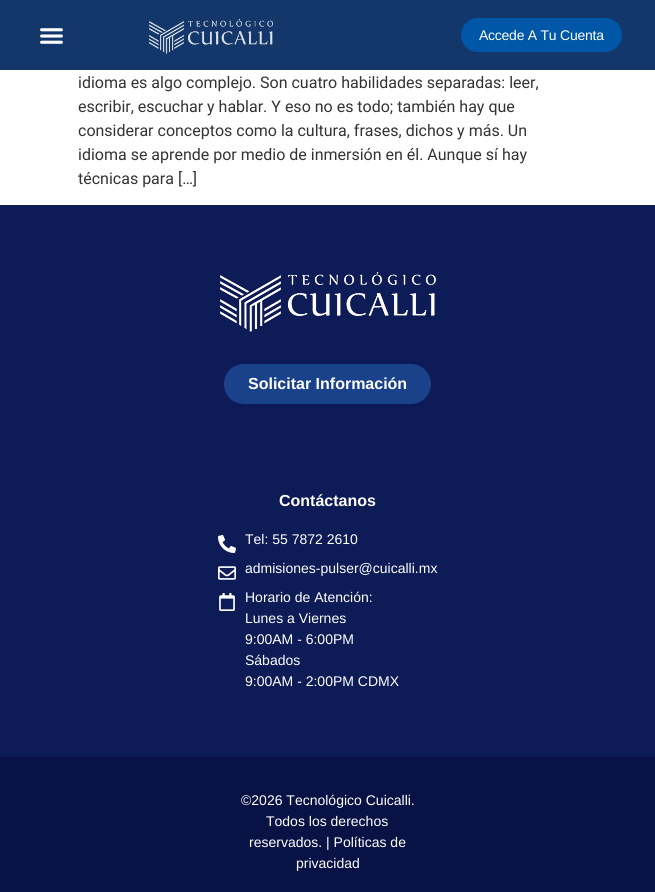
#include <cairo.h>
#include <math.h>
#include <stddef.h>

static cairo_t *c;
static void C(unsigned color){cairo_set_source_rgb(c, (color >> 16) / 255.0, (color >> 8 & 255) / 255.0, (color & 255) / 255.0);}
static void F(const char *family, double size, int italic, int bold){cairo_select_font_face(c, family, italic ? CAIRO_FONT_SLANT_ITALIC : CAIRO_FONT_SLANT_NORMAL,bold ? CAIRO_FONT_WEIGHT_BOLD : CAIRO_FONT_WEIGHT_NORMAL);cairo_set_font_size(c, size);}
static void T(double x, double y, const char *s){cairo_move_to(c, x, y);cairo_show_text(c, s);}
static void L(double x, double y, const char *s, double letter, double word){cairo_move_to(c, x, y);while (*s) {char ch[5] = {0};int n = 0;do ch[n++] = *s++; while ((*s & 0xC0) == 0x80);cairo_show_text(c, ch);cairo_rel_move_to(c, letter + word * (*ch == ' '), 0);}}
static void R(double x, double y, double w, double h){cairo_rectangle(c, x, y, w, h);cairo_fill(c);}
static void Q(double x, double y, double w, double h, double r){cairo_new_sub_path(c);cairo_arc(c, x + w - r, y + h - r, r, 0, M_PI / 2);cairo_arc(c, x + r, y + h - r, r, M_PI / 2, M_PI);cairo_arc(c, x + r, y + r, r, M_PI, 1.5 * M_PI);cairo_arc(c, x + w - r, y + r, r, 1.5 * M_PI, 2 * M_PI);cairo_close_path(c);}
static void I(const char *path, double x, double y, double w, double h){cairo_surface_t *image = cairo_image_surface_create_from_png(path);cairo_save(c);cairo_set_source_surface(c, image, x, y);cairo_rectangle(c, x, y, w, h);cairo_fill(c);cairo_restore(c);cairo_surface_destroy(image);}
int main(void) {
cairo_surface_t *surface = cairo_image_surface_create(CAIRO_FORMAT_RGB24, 655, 892);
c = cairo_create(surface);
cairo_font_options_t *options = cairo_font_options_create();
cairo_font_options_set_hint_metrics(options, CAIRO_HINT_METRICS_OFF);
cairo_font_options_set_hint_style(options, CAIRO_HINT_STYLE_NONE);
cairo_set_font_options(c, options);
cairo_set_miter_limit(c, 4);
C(0xffffff);
cairo_paint(c);
C(0x13376b);
R(0,0,655,70);
I("1.png",40,28,23,16);
I("2.png",149,19,124,35);
C(0x0056a7);
Q(461,18,161,34,17);
cairo_fill(c);
F("Liberation Sans",14,0,0);
C(0xffffff);
L(479,40,"Accede A Tu Cuenta",-.25,0);
F("Roboto",16,0,0);
C(0x333333);
T(78,88,"idioma es algo complejo. Son cuatro habilidades separadas: leer,");
T(78,112,"escribir, escuchar y hablar. Y eso no es todo; también hay que");
T(78,136,"considerar conceptos como la cultura, frases, dichos y más. Un");
T(78,160,"idioma se aprende por medio de inmersión en él. Aunque sí hay");
T(78,184,"técnicas para […]");
C(0x0d1b56);
R(0,205,655,552);
I("3.png",220,271,216,61);
C(0x1a428a);
Q(224,364,207,40,20);
cairo_fill(c);
F("Liberation Sans",16,0,1);
C(0xffffff);
T(248,389,"Solicitar Información");
T(279,506,"Contáctanos");
I("4.png",218,535,18,18);
F("Liberation Sans",14,0,0);
T(245,544,"Tel: 55 7872 2610");
I("5.png",218,566,18,14);
T(245,573,"admisiones-pulser@cuicalli.mx");
I("6.png",219,593,16,18);
T(245,602,"Horario de Atención:");
T(245,623,"Lunes a Viernes");
T(245,644,"9:00AM - 6:00PM");
T(245,665,"Sábados");
T(245,686,"9:00AM - 2:00PM CDMX");
C(0x091244);
R(0,757,655,135);
C(0xffffff);
T(241,805,"©2026 Tecnológico Cuicalli.");
T(266,826,"Todos los derechos");
T(249,847,"reservados. | Políticas de");
T(296,868,"privacidad");
cairo_surface_write_to_png(surface, "o.png");
cairo_font_options_destroy(options);
cairo_destroy(c);
cairo_surface_destroy(surface);
return 0;
}
